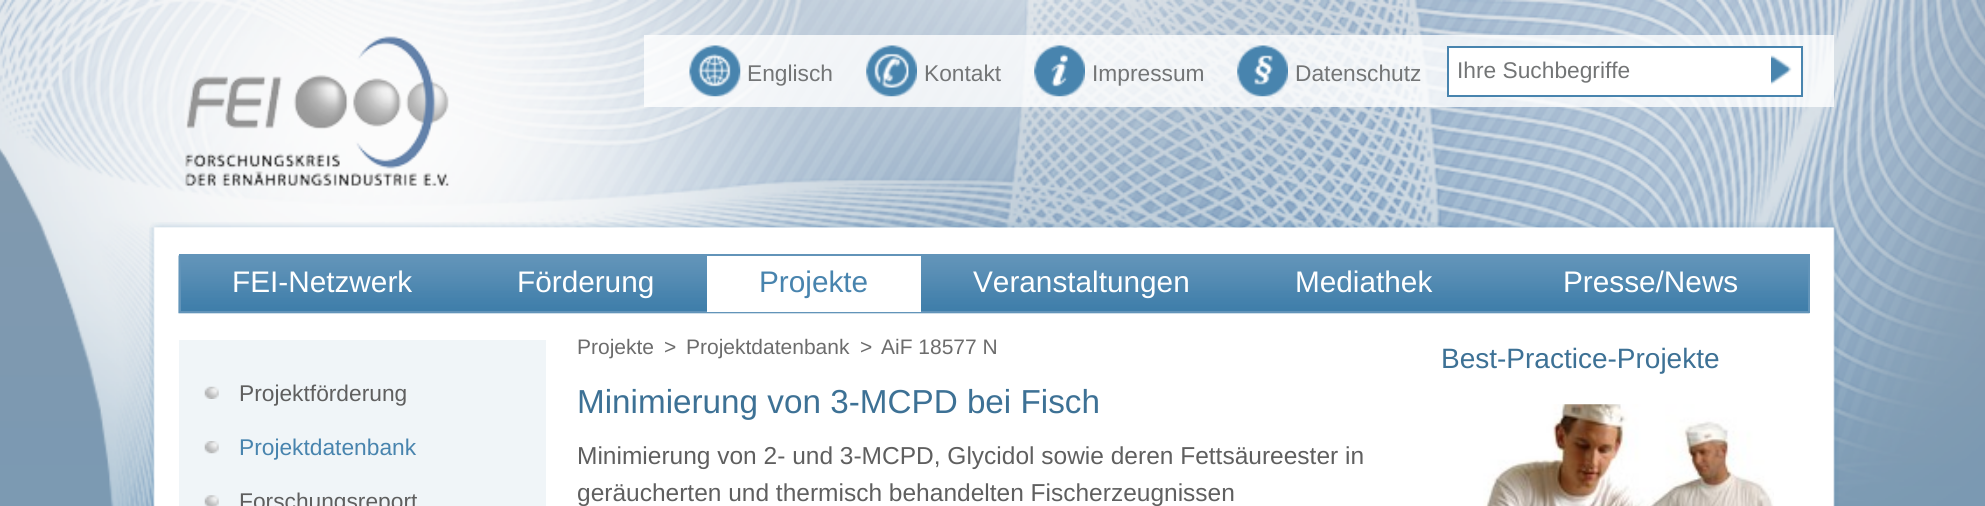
#include <cairo.h>
#include <math.h>
#include <stddef.h>

static cairo_t *c;
static void C(unsigned color){cairo_set_source_rgb(c, (color >> 16) / 255.0, (color >> 8 & 255) / 255.0, (color & 255) / 255.0);}
static void F(const char *family, double size, int italic, int bold){cairo_select_font_face(c, family, italic ? CAIRO_FONT_SLANT_ITALIC : CAIRO_FONT_SLANT_NORMAL,bold ? CAIRO_FONT_WEIGHT_BOLD : CAIRO_FONT_WEIGHT_NORMAL);cairo_set_font_size(c, size);}
static void T(double x, double y, const char *s){cairo_move_to(c, x, y);cairo_show_text(c, s);}
static void R(double x, double y, double w, double h){cairo_rectangle(c, x, y, w, h);cairo_fill(c);}
static void I(const char *path, double x, double y, double w, double h){cairo_surface_t *image = cairo_image_surface_create_from_png(path);cairo_save(c);cairo_set_source_surface(c, image, x, y);cairo_rectangle(c, x, y, w, h);cairo_fill(c);cairo_restore(c);cairo_surface_destroy(image);}
int main(void) {
cairo_surface_t *surface = cairo_image_surface_create(CAIRO_FORMAT_RGB24, 1985, 506);
c = cairo_create(surface);
cairo_font_options_t *options = cairo_font_options_create();
cairo_font_options_set_hint_metrics(options, CAIRO_HINT_METRICS_OFF);
cairo_font_options_set_hint_style(options, CAIRO_HINT_STYLE_NONE);
cairo_set_font_options(c, options);
cairo_set_miter_limit(c, 4);
C(0xffffff);
cairo_paint(c);
I("1.png",0,0,1985,506);
I("2.png",185,36,264,150);
cairo_set_source_rgba(c,1,1,1,0.8);
R(644,35,1190,72);
I("3.png",689,45,52,52);
F("Liberation Sans",22.75,0,0);
C(0x737576);
T(747,81,"Englisch");
I("4.png",866,45,51,52);
T(924,81,"Kontakt");
I("5.png",1034,45,51,52);
T(1092,81,"Impressum");
I("6.png",1237,45,51,52);
T(1295,81,"Datenschutz");
C(0xffffff);
R(1449,48,352,47);
C(0x4884ae);
R(1447,46,356,2);
R(1447,95,319,2);
R(1447,46,2,50);
C(0x737576);
T(1457,78,"Ihre Suchbegriffe");
I("7.png",1771,55,21,30);
C(0x4884ae);
R(1801,46,2,50);
R(1766,95,37,2);
I("8.png",150,222,1688,6);
I("9.png",149,227,1690,279);
I("10.png",178,255,1632,59);
cairo_rectangle(c,180,255,1629,57);
C(0x6294b9);
cairo_stroke(c);
F("Liberation Sans",29.75,0,0);
C(0xffffff);
T(232,292,"FEI-Netzwerk");
T(517,292,"Förderung");
R(707,256,214,56);
C(0x4884ae);
T(759,292,"Projekte");
C(0xffffff);
T(973,292,"Veranstaltungen");
T(1295,292,"Mediathek");
T(1563,292,"Presse/News");
C(0xf0f5f8);
R(179,340,367,166);
I("11.png",204,386,15,13);
F("Liberation Sans",22.75,0,0);
C(0x5f5f5f);
T(239,401,"Projektförderung");
I("12.png",204,441,15,13);
C(0x4884ae);
T(239,455,"Projektdatenbank");
I("13.png",204,495,15,11);
C(0x5f5f5f);
T(239,509,"Forschungsreport");
F("Liberation Sans",21,0,0);
C(0x6c6c6c);
T(577,354,"Projekte");
T(664,354,">");
T(686,354,"Projektdatenbank");
T(860,354,">");
T(881,354,"AiF 18577 N");
F("Liberation Sans",33.25,0,0);
C(0x3d7195);
T(577,413,"Minimierung von 3-MCPD bei Fisch");
F("Liberation Sans",24.5,0,0);
C(0x5f5f5f);
T(577,464,"Minimierung von 2- und 3-MCPD, Glycidol sowie deren Fettsäureester in");
T(577,501,"geräucherten und thermisch behandelten Fischerzeugnissen");
F("Liberation Sans",28,0,0);
C(0x3d7195);
T(1441,368,"Best-Practice-Projekte");
I("14.png",1483,404,291,102);
cairo_surface_write_to_png(surface, "o.png");
cairo_font_options_destroy(options);
cairo_destroy(c);
cairo_surface_destroy(surface);
return 0;
}
